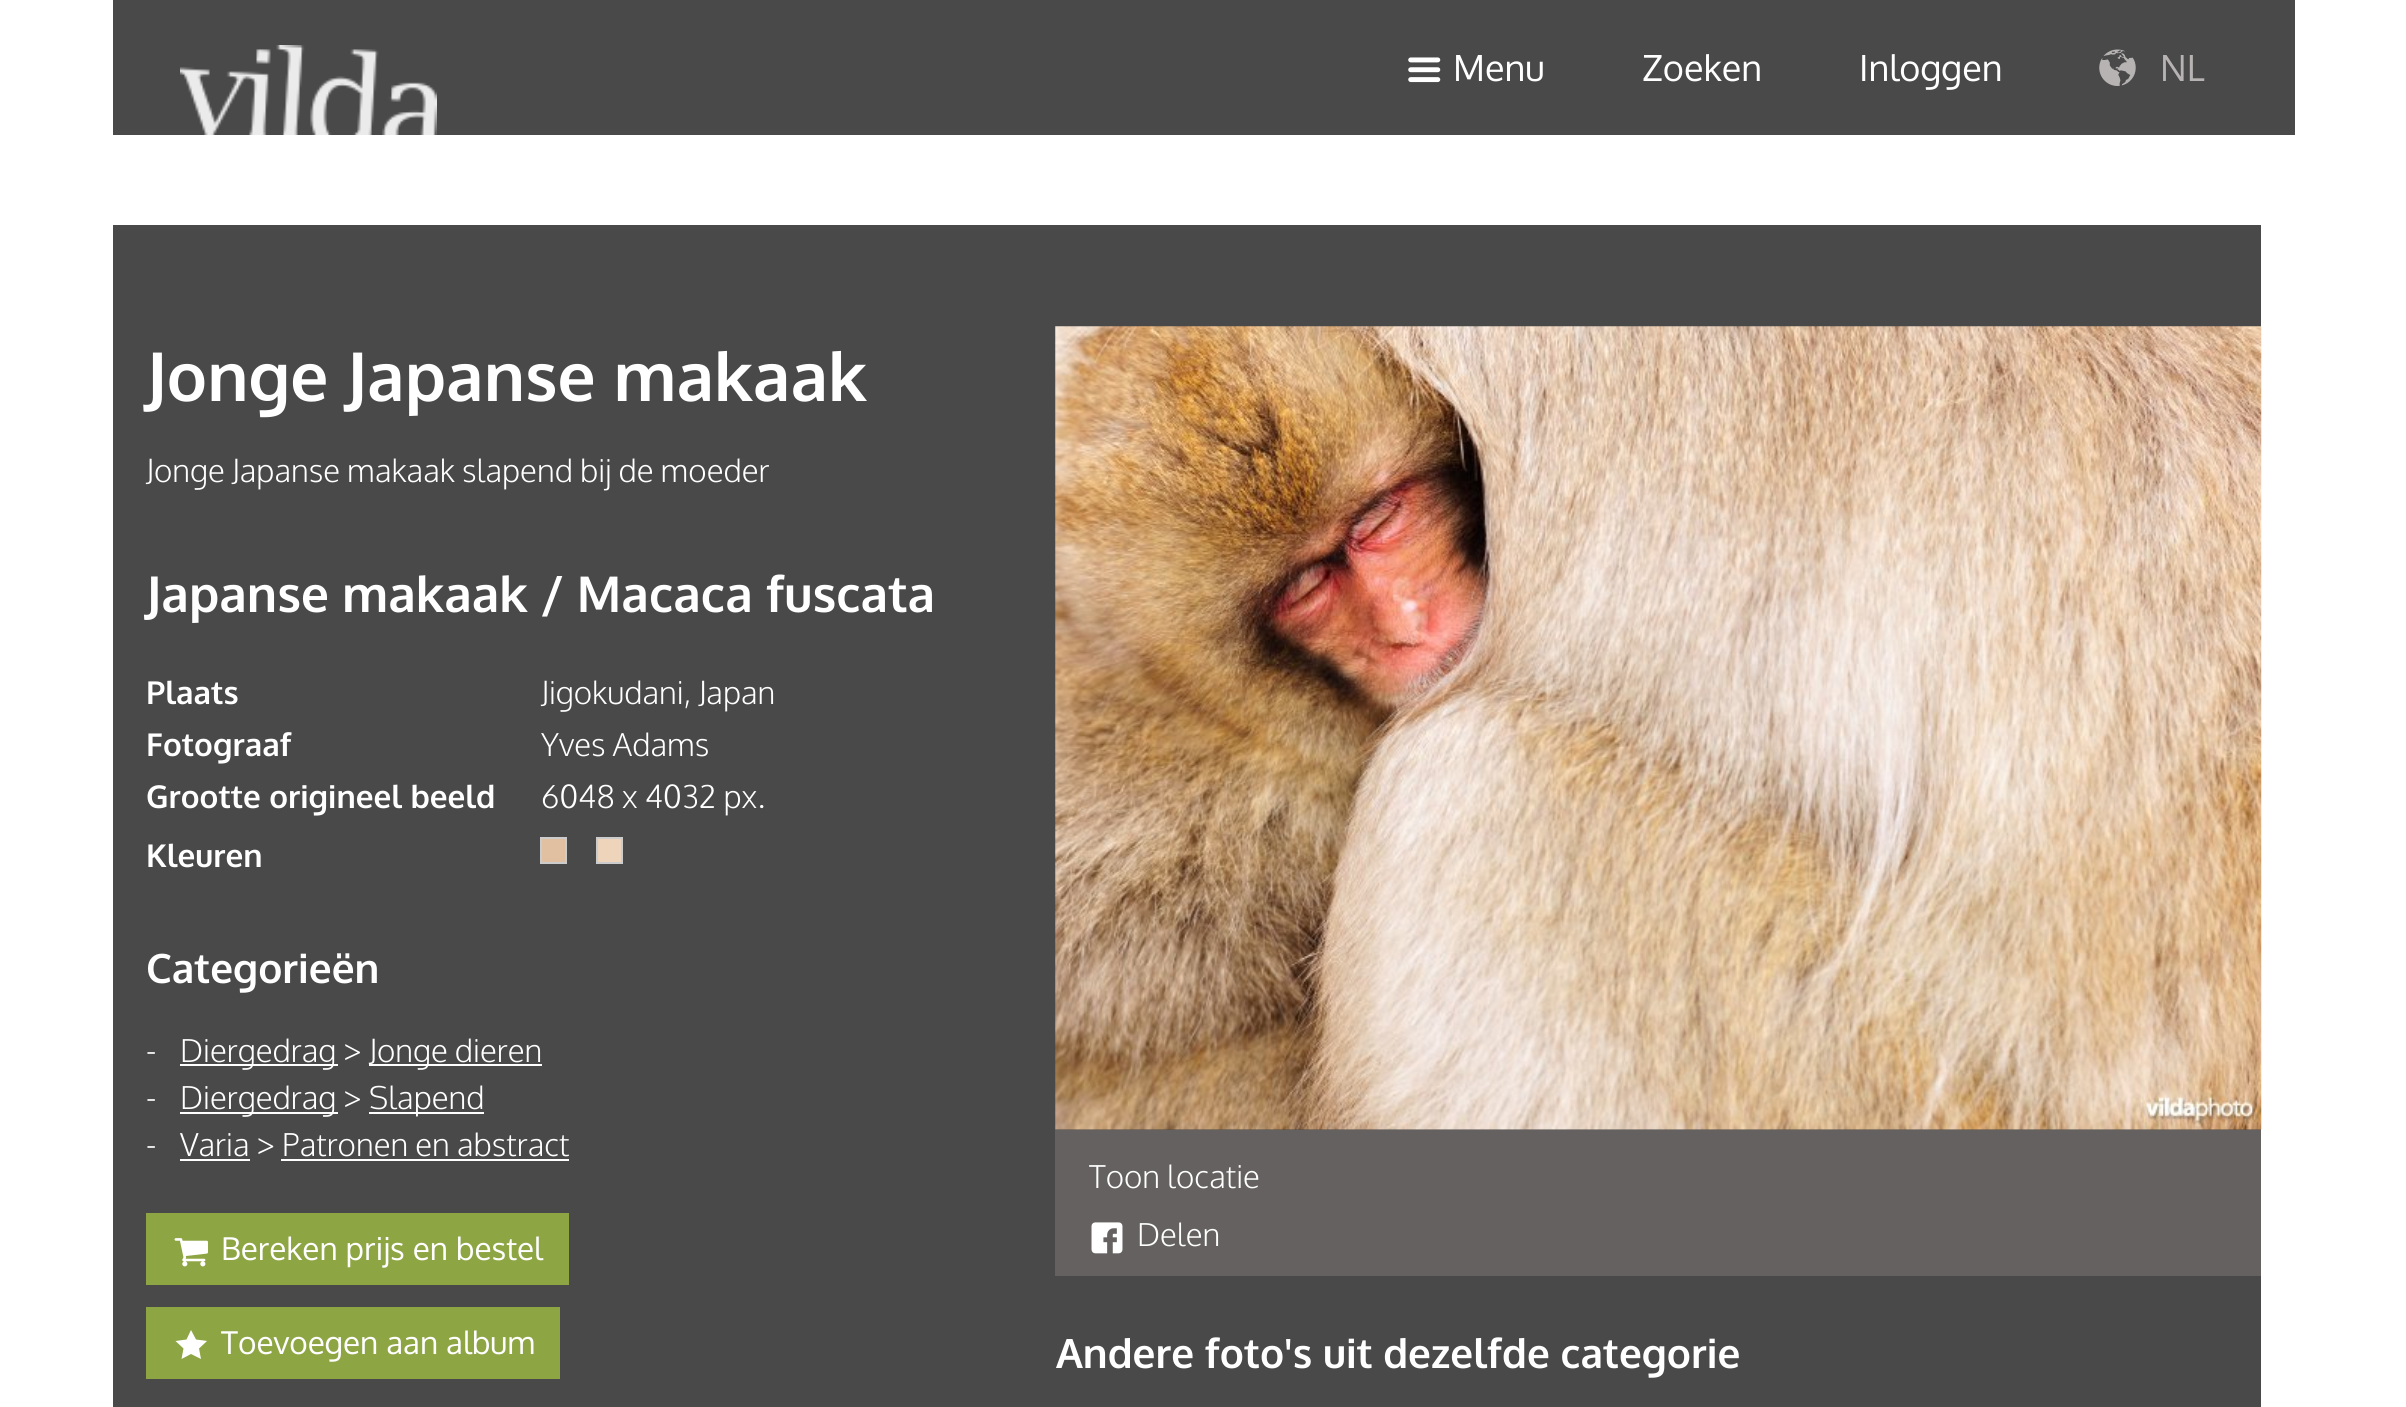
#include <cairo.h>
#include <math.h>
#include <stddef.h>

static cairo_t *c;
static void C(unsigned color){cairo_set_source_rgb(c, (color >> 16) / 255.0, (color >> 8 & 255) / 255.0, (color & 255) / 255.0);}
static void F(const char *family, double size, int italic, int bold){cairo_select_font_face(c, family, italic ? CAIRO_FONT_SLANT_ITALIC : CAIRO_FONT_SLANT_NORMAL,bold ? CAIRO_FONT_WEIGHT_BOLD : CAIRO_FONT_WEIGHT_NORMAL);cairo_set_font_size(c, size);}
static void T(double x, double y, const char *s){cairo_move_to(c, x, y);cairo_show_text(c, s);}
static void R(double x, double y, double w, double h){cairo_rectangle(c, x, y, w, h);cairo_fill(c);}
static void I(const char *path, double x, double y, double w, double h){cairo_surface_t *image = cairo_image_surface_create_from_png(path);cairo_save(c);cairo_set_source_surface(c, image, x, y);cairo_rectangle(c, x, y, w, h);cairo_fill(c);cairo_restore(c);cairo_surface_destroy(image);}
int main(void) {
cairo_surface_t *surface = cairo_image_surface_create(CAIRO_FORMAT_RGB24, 2406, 1407);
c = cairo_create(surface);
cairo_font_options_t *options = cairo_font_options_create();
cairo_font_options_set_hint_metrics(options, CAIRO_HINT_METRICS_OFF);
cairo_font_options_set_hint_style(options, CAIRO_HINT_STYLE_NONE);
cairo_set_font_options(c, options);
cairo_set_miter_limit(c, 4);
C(0xffffff);
cairo_paint(c);
C(0x494949);
R(113,0,2182,135);
I("1.png",180,45,257,90);
I("2.png",1408,57,33,26);
F("Oxygen",36,0,0);
C(0xffffff);
T(1453,81,"Menu");
T(1642,81,"Zoeken");
T(1859,81,"Inloggen");
I("3.png",2099,49,37,37);
C(0xb7b3b3);
T(2160,81,"NL");
C(0x494949);
R(113,225,2148,1182);
F("Oxygen",67.5,0,1);
C(0xffffff);
T(146,401,"Jonge Japanse makaak");
F("Oxygen Light",31.5,0,0);
T(146,482,"Jonge Japanse makaak slapend bij de moeder");
F("Oxygen",49.5,0,1);
T(146,612,"Japanse makaak / Macaca fuscata");
F("Oxygen",31.5,0,1);
T(146,704,"Plaats");
F("Oxygen Light",31.5,0,0);
T(541,704,"Jigokudani, Japan");
F("Oxygen",31.5,0,1);
T(146,756,"Fotograaf");
F("Oxygen Light",31.5,0,0);
T(541,756,"Yves Adams");
F("Oxygen",31.5,0,1);
T(146,808,"Grootte origineel beeld");
F("Oxygen Light",31.5,0,0);
T(541,808,"6048 x 4032 px.");
F("Oxygen",31.5,0,1);
T(146,867,"Kleuren");
C(0xe1bfa1);
cairo_rectangle(c,541,838,25,25);
cairo_fill_preserve(c);
C(0xcccccc);
cairo_stroke(c);
C(0xeed4bb);
cairo_rectangle(c,597,838,25,25);
cairo_fill_preserve(c);
C(0xcccccc);
cairo_stroke(c);
F("Oxygen",40.5,0,1);
C(0xffffff);
T(146,983,"Categorieën");
F("Oxygen Light",31.5,0,0);
T(146,1062,"-");
R(180,1064,158,2);
T(180,1062,"Diergedrag >");
R(369,1064,173,2);
T(369,1062,"Jonge dieren");
T(146,1109,"-");
R(180,1112,158,2);
T(180,1109,"Diergedrag >");
R(369,1112,115,2);
T(369,1109,"Slapend");
T(146,1156,"-");
T(180,1156,"Varia > Patronen en abstract");
R(180,1159,70,2);
R(281,1159,288,2);
C(0x8ea544);
R(146,1213,423,72);
I("4.png",174,1238,34,29);
F("Oxygen",31.5,0,0);
C(0xffffff);
T(221,1260,"Bereken prijs en bestel");
C(0x8ea544);
R(146,1307,414,72);
C(0xffffff);
cairo_new_path(c);
cairo_move_to(c,207,1341);
cairo_line_to(c,199,1348.5);
cairo_line_to(c,201,1359);
cairo_line_to(c,191,1354);
cairo_line_to(c,181.5,1359);
cairo_line_to(c,183.5,1348.5);
cairo_line_to(c,175.5,1341);
cairo_line_to(c,186.5,1339.5);
cairo_line_to(c,191,1330);
cairo_line_to(c,196,1339.5);
cairo_close_path(c);
cairo_fill(c);
T(221,1354,"Toevoegen aan album");
I("5.png",1055,326,1207,804);
C(0x646160);
R(1055,1130,1206,146);
F("Oxygen Light",31.5,0,0);
C(0xffffff);
T(1089,1188,"Toon locatie");
I("6.png",1091,1222,32,32);
T(1137,1246,"Delen");
F("Oxygen",40.5,0,1);
T(1056,1368,"Andere foto's uit dezelfde categorie");
cairo_surface_write_to_png(surface, "o.png");
cairo_font_options_destroy(options);
cairo_destroy(c);
cairo_surface_destroy(surface);
return 0;
}
